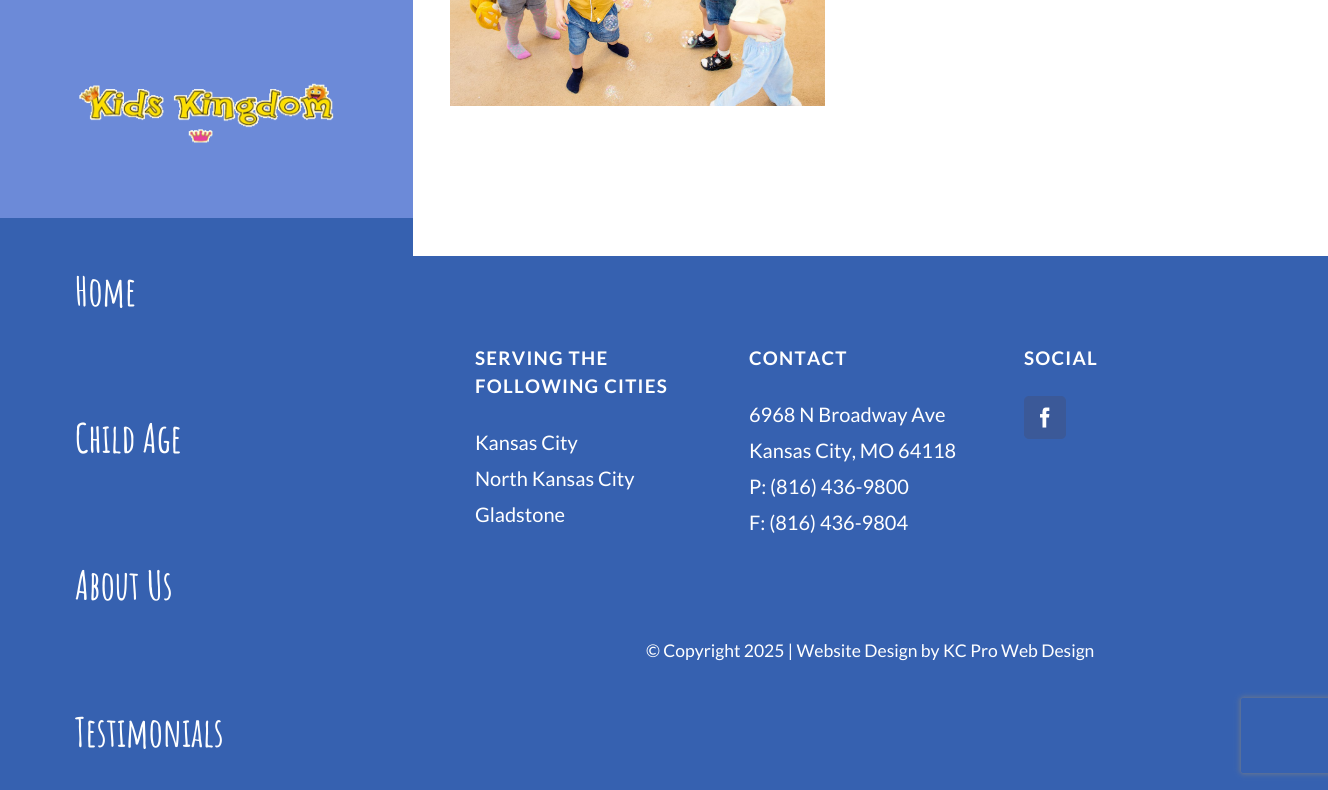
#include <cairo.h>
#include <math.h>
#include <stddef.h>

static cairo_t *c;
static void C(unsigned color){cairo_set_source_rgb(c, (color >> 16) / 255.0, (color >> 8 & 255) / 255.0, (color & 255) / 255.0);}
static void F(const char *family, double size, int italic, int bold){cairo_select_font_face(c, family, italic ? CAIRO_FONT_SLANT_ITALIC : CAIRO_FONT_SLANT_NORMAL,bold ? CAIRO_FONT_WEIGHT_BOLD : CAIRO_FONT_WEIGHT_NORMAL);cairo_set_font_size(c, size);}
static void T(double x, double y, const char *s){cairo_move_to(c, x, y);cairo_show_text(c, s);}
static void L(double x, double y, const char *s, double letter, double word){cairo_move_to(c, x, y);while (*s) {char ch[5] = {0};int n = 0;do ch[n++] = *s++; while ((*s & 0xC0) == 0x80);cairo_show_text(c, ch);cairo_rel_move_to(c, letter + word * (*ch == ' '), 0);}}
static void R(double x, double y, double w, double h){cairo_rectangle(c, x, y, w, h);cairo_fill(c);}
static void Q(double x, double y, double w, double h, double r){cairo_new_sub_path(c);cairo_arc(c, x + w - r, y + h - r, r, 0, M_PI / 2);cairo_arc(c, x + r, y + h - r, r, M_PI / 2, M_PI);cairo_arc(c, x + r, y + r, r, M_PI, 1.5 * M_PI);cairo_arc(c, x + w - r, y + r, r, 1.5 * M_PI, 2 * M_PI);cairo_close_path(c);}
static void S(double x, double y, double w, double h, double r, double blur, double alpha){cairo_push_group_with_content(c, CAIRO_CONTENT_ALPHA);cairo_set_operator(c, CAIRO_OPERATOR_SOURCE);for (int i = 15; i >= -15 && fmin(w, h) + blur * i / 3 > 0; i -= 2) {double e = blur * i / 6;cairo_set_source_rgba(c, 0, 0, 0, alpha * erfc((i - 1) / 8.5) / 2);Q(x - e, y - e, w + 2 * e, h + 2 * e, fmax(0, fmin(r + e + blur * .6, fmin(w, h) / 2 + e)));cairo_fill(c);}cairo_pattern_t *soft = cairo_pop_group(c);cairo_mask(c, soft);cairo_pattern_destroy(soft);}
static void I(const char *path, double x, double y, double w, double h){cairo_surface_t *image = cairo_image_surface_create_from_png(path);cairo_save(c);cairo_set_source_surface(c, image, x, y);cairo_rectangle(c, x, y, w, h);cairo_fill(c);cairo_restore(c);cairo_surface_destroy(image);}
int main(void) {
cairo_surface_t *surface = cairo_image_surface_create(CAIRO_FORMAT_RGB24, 1328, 790);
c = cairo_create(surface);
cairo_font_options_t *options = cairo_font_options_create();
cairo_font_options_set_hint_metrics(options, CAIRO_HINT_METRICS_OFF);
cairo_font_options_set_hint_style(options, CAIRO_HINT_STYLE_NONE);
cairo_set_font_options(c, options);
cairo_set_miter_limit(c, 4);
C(0xffffff);
cairo_paint(c);
I("1.png",450,0,375,106);
C(0x3661b0);
R(0,218,413,572);
C(0x6c8ad8);
R(0,0,413,218);
I("2.png",79,83,255,60);
F("Amatic SC",40,0,1);
C(0xffffff);
T(75,306,"Home");
T(75,453,"Child Age");
T(75,600,"About Us");
T(75,747,"Testimonials");
C(0x3661b0);
R(413,256,915,534);
F("Lato",18.75,0,1);
C(0xffffff);
L(475,365,"SERVING THE",1.25,0);
L(475,393,"FOLLOWING CITIES",1.25,0);
F("Lato",20,0,0);
T(475,450,"Kansas City");
T(475,486,"North Kansas City");
T(475,522,"Gladstone");
F("Lato",18.75,0,1);
L(749,365,"CONTACT",1.25,0);
F("Lato",20,0,0);
T(749,422,"6968 N Broadway Ave");
T(749,458,"Kansas City, MO 64118");
T(749,494,"P: (816) 436-9800");
T(749,530,"F: (816) 436-9804");
F("Lato",18.75,0,1);
L(1024,365,"SOCIAL",1.25,0);
C(0x3b5998);
Q(1024.5,396.5,41,42,4.5);
cairo_fill_preserve(c);
cairo_set_line_width(c,1);
cairo_stroke(c);
I("3.png",1040,407,10,21);
F("Lato",17.5,0,0);
C(0xffffff);
T(646,657,"© Copyright 2025 | Website Design by KC Pro Web Design");
cairo_save(c);
cairo_set_fill_rule(c,CAIRO_FILL_RULE_EVEN_ODD);
cairo_new_path(c);
cairo_move_to(c,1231,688);
cairo_line_to(c,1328,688);
cairo_line_to(c,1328,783);
cairo_line_to(c,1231,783);
cairo_close_path(c);
cairo_move_to(c,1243.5,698);
cairo_line_to(c,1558.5,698);
cairo_curve_to(c,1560,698,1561,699,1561,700.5);
cairo_line_to(c,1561,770.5);
cairo_curve_to(c,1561,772,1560,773,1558.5,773);
cairo_line_to(c,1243.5,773);
cairo_curve_to(c,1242,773,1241,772,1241,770.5);
cairo_line_to(c,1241,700.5);
cairo_curve_to(c,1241,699,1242,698,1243.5,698);
cairo_close_path(c);
cairo_clip(c);
C(0x808080);
S(1241,698,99,75,2.5,3,1);
cairo_restore(c);
cairo_surface_write_to_png(surface, "o.png");
cairo_font_options_destroy(options);
cairo_destroy(c);
cairo_surface_destroy(surface);
return 0;
}
